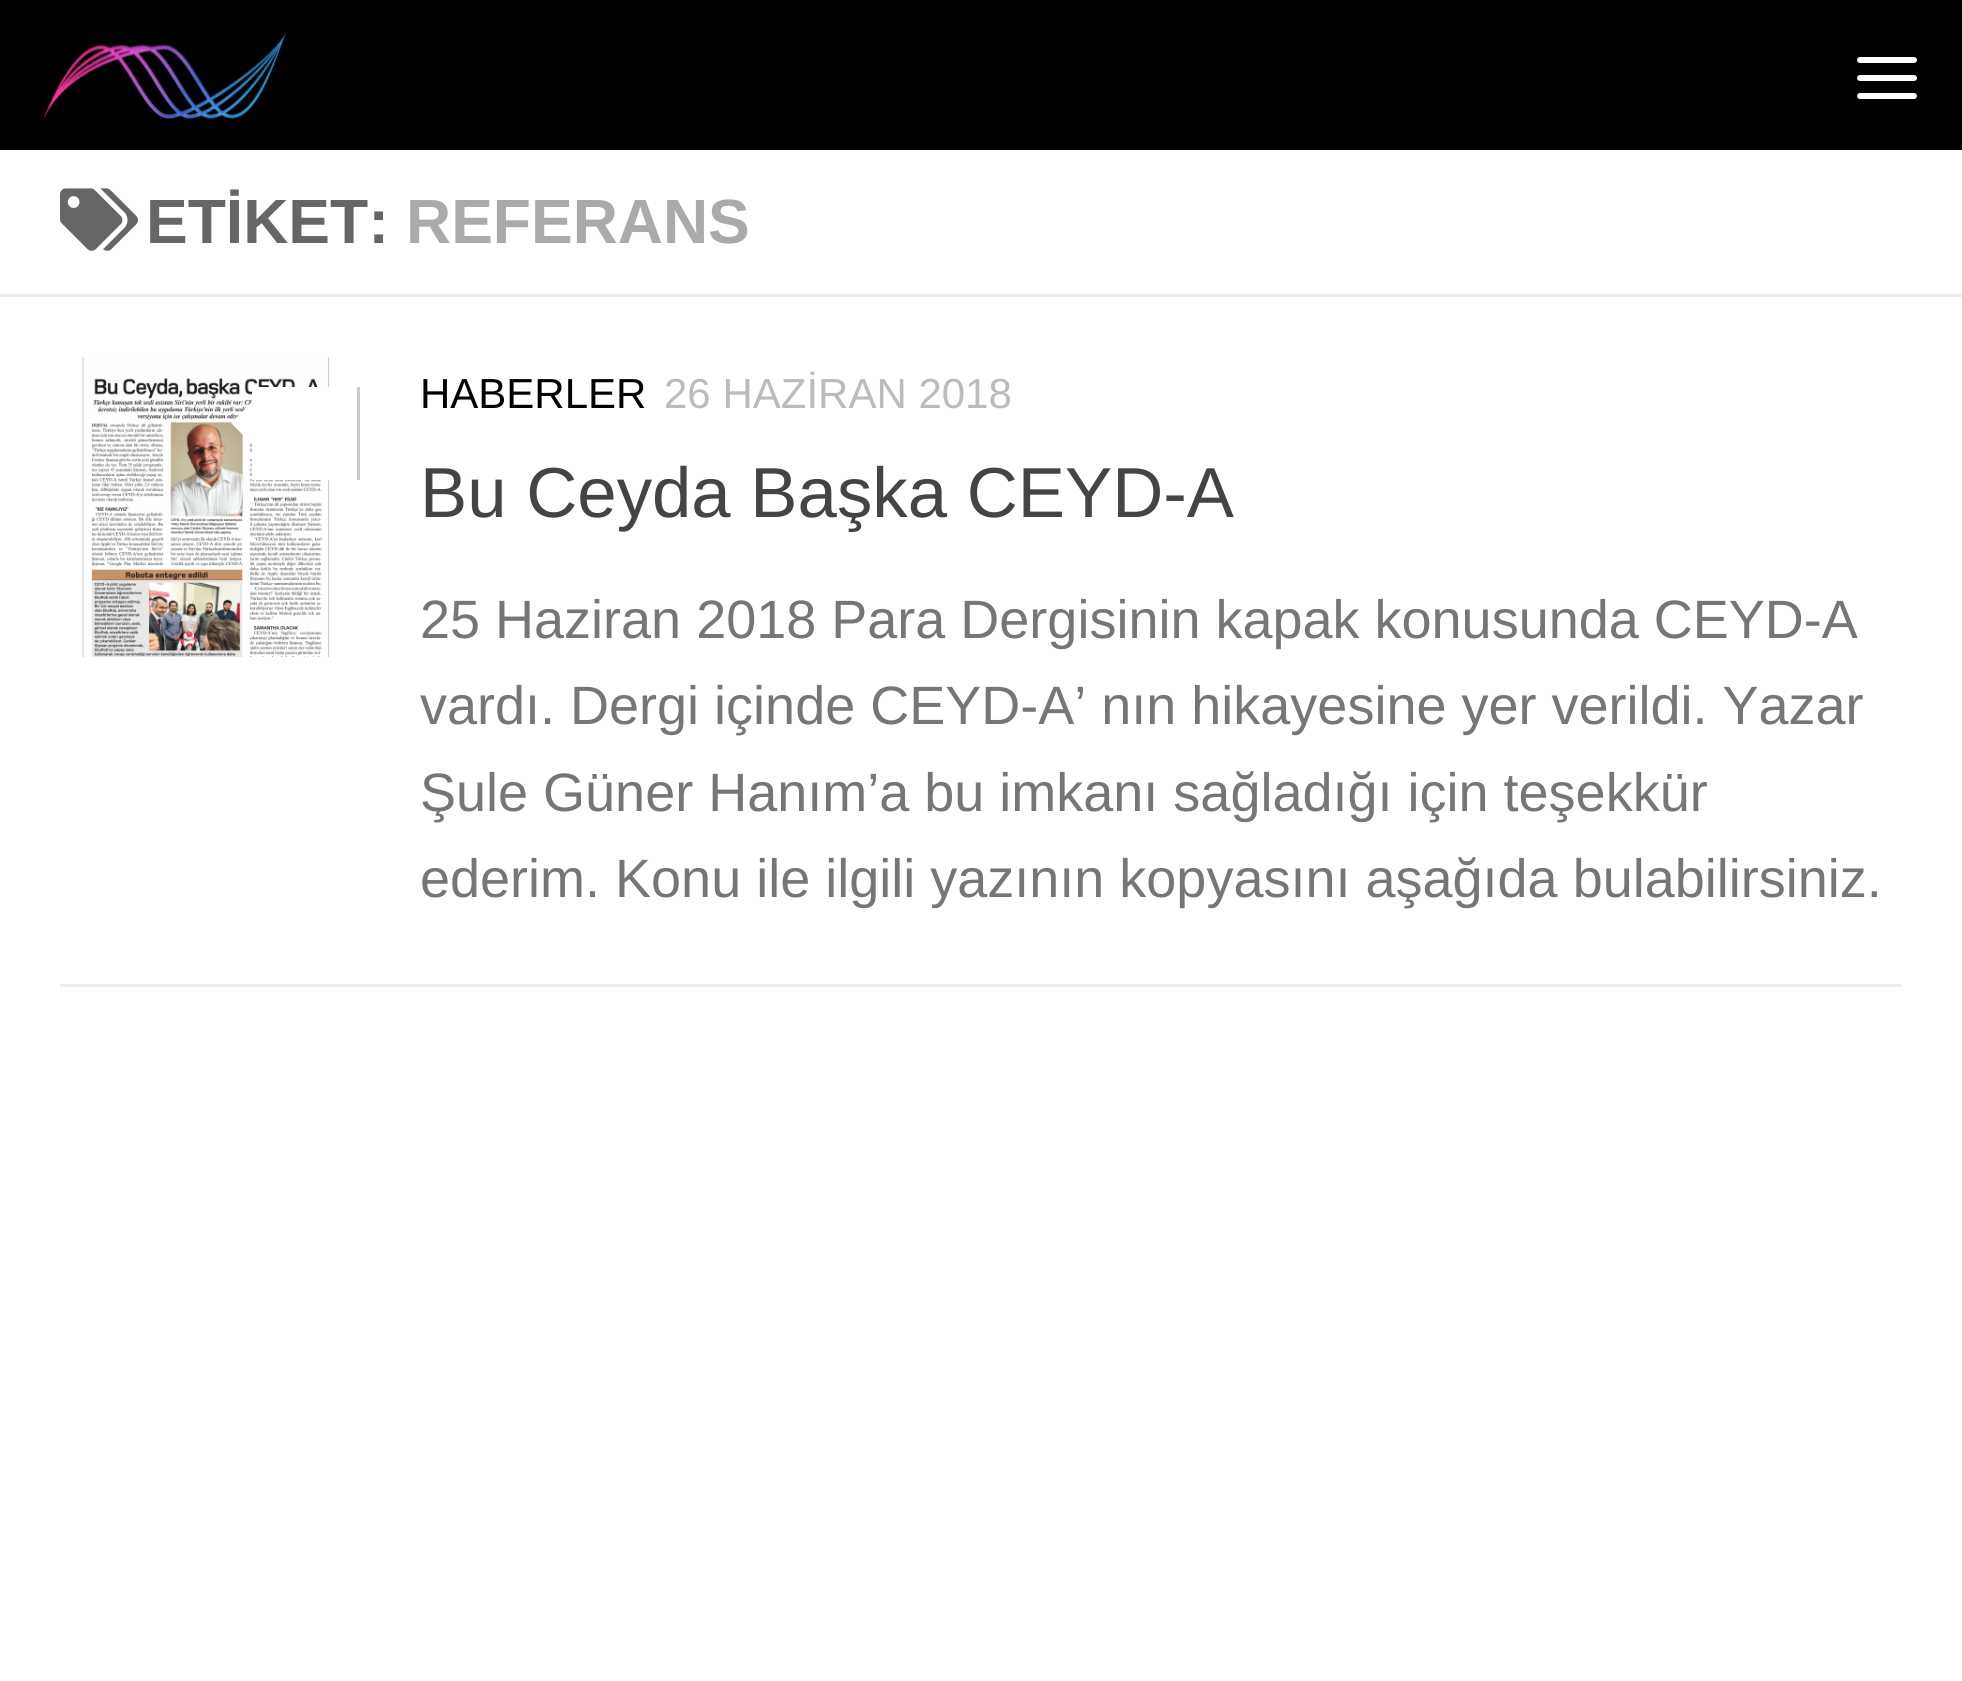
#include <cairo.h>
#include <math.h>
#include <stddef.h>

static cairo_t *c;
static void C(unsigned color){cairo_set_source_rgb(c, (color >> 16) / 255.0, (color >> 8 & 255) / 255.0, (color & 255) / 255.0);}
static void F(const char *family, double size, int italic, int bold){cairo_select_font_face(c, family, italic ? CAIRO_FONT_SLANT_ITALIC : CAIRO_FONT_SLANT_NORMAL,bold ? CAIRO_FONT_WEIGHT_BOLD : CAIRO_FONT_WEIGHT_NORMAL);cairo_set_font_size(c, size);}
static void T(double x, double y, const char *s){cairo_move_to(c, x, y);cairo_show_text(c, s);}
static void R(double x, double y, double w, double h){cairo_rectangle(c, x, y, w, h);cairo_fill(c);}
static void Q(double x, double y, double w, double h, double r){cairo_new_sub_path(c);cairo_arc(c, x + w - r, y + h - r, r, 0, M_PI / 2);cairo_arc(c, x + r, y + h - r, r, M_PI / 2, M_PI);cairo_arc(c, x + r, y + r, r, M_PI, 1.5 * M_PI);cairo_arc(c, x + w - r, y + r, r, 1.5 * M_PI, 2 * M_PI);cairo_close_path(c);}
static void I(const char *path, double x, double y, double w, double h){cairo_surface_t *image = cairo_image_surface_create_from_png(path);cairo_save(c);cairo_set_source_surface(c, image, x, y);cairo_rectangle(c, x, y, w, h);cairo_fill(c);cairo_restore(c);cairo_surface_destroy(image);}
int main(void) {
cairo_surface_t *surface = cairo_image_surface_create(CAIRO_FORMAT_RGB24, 1962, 1681);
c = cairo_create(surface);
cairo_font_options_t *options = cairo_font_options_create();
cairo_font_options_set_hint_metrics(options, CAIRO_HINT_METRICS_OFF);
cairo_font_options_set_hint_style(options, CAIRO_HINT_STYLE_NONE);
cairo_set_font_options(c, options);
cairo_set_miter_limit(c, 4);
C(0xffffff);
cairo_paint(c);
C(0x000000);
R(0,0,1962,150);
I("1.png",43,31,243,89);
C(0xffffff);
Q(1857,57,60,6,3);
cairo_fill(c);
Q(1857,75,60,6,3);
cairo_fill(c);
Q(1857,93,60,6,3);
cairo_fill(c);
C(0xeeeeee);
R(0,294,1962,3);
I("2.png",60,188,78,63);
F("Liberation Sans",62.5,0,1);
C(0x666666);
T(146,243,"ETİKET:");
C(0xaaaaaa);
T(406,243,"REFERANS");
C(0xeeeeee);
R(60,984,1842,3);
I("3.png",82,357,248,300);
C(0xffffff);
R(252,387,78,93);
C(0xcccccc);
R(357,387,3,93);
C(0xffffff);
cairo_new_path(c);
cairo_move_to(c,258,396);
cairo_line_to(c,258,450);
cairo_line_to(c,231,423);
cairo_close_path(c);
cairo_fill(c);
F("Liberation Sans",42,0,0);
C(0x000000);
T(420,408,"HABERLER");
C(0xbbbbbb);
T(664,408,"26 HAZİRAN 2018");
F("Liberation Sans",70.75,0,0);
C(0x444444);
T(420,517,"Bu Ceyda Başka CEYD-A");
F("Liberation Sans",54,0,0);
C(0x767676);
T(420,638,"25 Haziran 2018 Para Dergisinin kapak konusunda CEYD-A");
T(420,724,"vardı. Dergi içinde CEYD-A’ nın hikayesine yer verildi. Yazar");
T(420,811,"Şule Güner Hanım’a bu imkanı sağladığı için teşekkür");
T(420,897,"ederim. Konu ile ilgili yazının kopyasını aşağıda bulabilirsiniz.");
cairo_surface_write_to_png(surface, "o.png");
cairo_font_options_destroy(options);
cairo_destroy(c);
cairo_surface_destroy(surface);
return 0;
}
